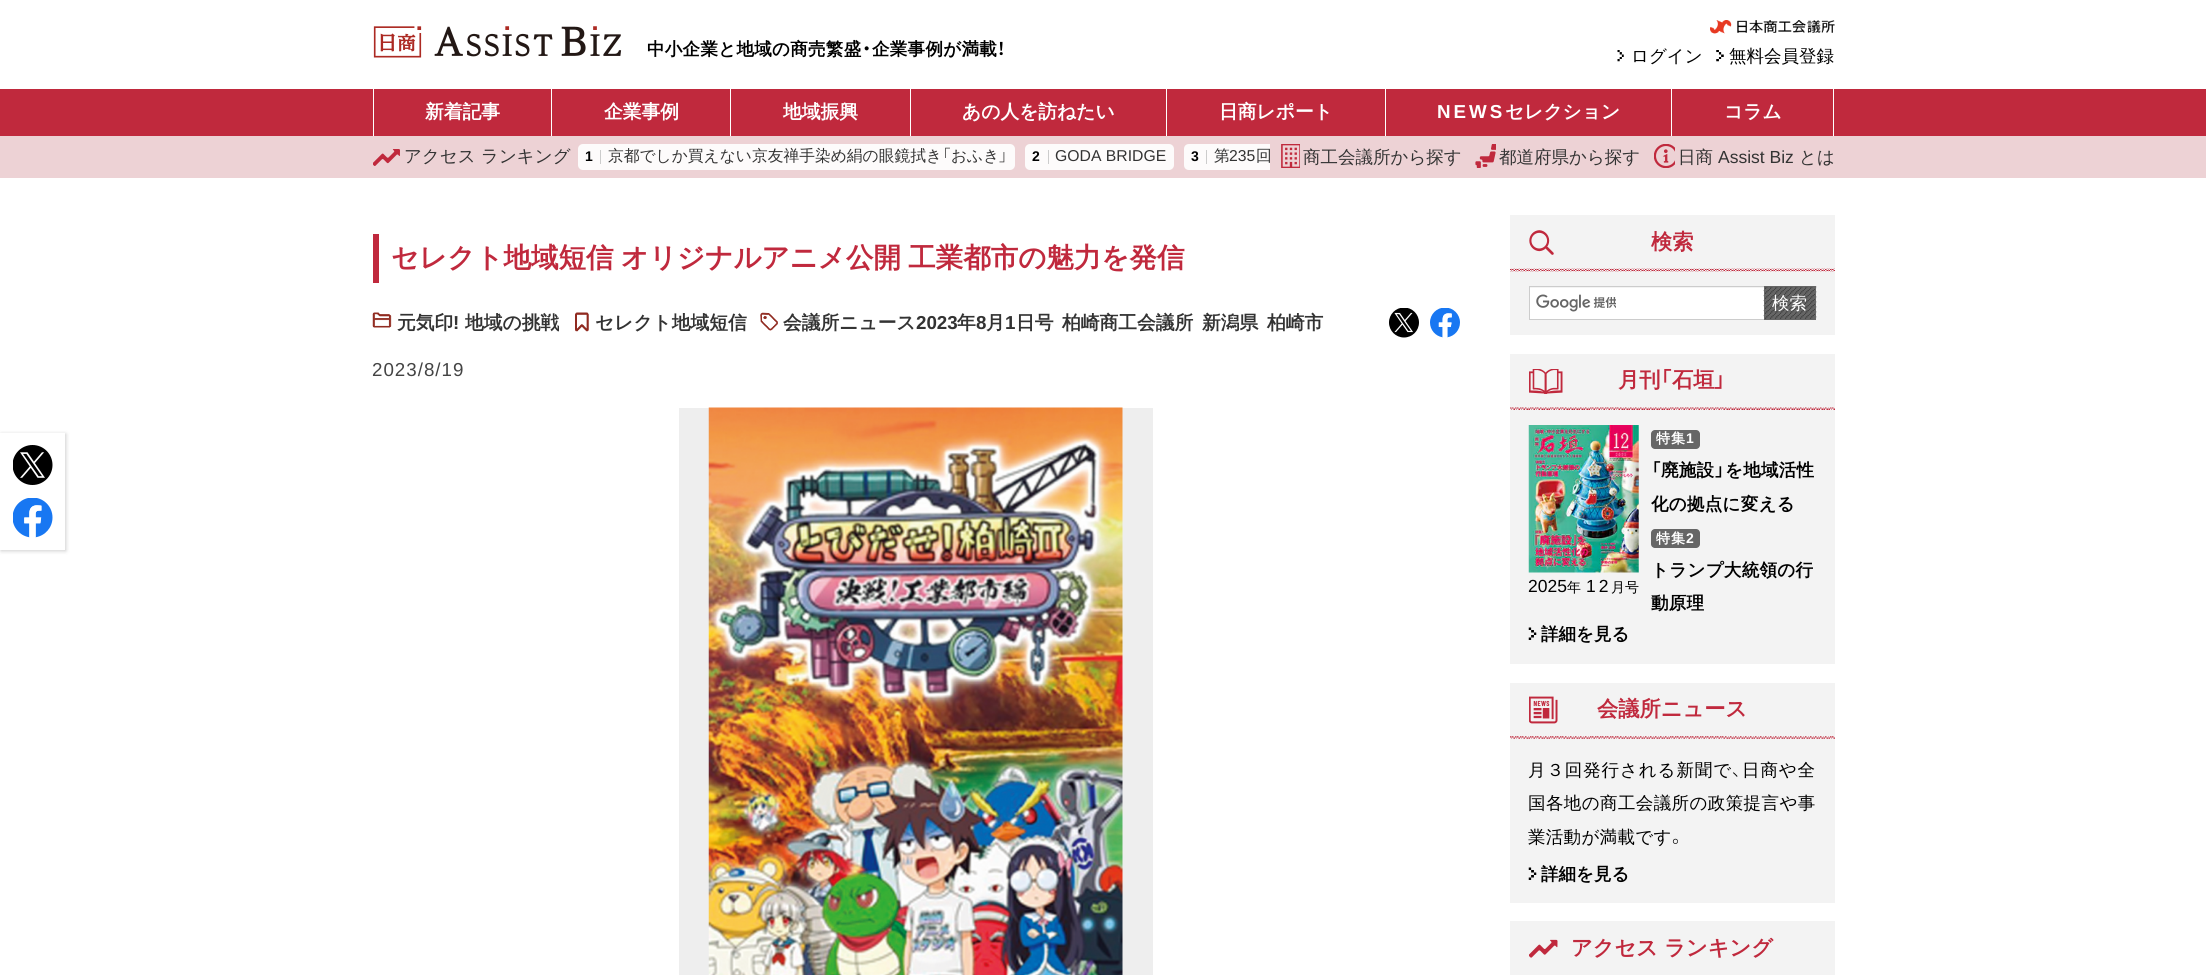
#include <cairo.h>
#include <math.h>
#include <stddef.h>

static cairo_t *c;
static void C(unsigned color){cairo_set_source_rgb(c, (color >> 16) / 255.0, (color >> 8 & 255) / 255.0, (color & 255) / 255.0);}
static void F(const char *family, double size, int italic, int bold){cairo_select_font_face(c, family, italic ? CAIRO_FONT_SLANT_ITALIC : CAIRO_FONT_SLANT_NORMAL,bold ? CAIRO_FONT_WEIGHT_BOLD : CAIRO_FONT_WEIGHT_NORMAL);cairo_set_font_size(c, size);}
static void T(double x, double y, const char *s){cairo_move_to(c, x, y);cairo_show_text(c, s);}
static void L(double x, double y, const char *s, double letter, double word){cairo_move_to(c, x, y);while (*s) {char ch[5] = {0};int n = 0;do ch[n++] = *s++; while ((*s & 0xC0) == 0x80);cairo_show_text(c, ch);cairo_rel_move_to(c, letter + word * (*ch == ' '), 0);}}
static void R(double x, double y, double w, double h){cairo_rectangle(c, x, y, w, h);cairo_fill(c);}
static void Q(double x, double y, double w, double h, double r){cairo_new_sub_path(c);cairo_arc(c, x + w - r, y + h - r, r, 0, M_PI / 2);cairo_arc(c, x + r, y + h - r, r, M_PI / 2, M_PI);cairo_arc(c, x + r, y + r, r, M_PI, 1.5 * M_PI);cairo_arc(c, x + w - r, y + r, r, 1.5 * M_PI, 2 * M_PI);cairo_close_path(c);}
static void S(double x, double y, double w, double h, double r, double blur, double alpha){cairo_push_group_with_content(c, CAIRO_CONTENT_ALPHA);cairo_set_operator(c, CAIRO_OPERATOR_SOURCE);for (int i = 15; i >= -15 && fmin(w, h) + blur * i / 3 > 0; i -= 2) {double e = blur * i / 6;cairo_set_source_rgba(c, 0, 0, 0, alpha * erfc((i - 1) / 8.5) / 2);Q(x - e, y - e, w + 2 * e, h + 2 * e, fmax(0, fmin(r + e + blur * .6, fmin(w, h) / 2 + e)));cairo_fill(c);}cairo_pattern_t *soft = cairo_pop_group(c);cairo_mask(c, soft);cairo_pattern_destroy(soft);}
static void I(const char *path, double x, double y, double w, double h){cairo_surface_t *image = cairo_image_surface_create_from_png(path);cairo_save(c);cairo_set_source_surface(c, image, x, y);cairo_rectangle(c, x, y, w, h);cairo_fill(c);cairo_restore(c);cairo_surface_destroy(image);}
int main(void) {
cairo_surface_t *surface = cairo_image_surface_create(CAIRO_FORMAT_RGB24, 2206, 975);
c = cairo_create(surface);
cairo_font_options_t *options = cairo_font_options_create();
cairo_font_options_set_hint_metrics(options, CAIRO_HINT_METRICS_OFF);
cairo_font_options_set_hint_style(options, CAIRO_HINT_STYLE_NONE);
cairo_set_font_options(c, options);
cairo_set_miter_limit(c, 4);
C(0xffffff);
cairo_paint(c);
I("1.png",373,26,249,32);
F("WenQuanYi Zen Hei",17.5,0,1);
C(0x000000);
L(647,55,"中小企業と地域の商売繁盛",.3,0);
F("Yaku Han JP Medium",17.5,0,0);
L(862,55,"・",.3,0);
F("WenQuanYi Zen Hei",17.5,0,1);
L(872,55,"企業事例が満載",.3,0);
F("Yaku Han JP Medium",17.5,0,0);
L(997,55,"！",.3,0);
I("2.png",1710,20,125,14);
I("3.png",1617,50,7,12);
F("WenQuanYi Zen Hei Medium",17.5,0,0);
T(1631,62,"ログイン");
I("4.png",1716,50,8,12);
T(1729,62,"無料会員登録");
C(0xc0293d);
R(0,89,2206,47);
C(0xffffff);
R(373,89,1,47);
R(551,89,1,47);
F("WenQuanYi Zen Hei",18.75,0,1);
T(425,118,"新着記事");
R(730,89,1,47);
T(604,118,"企業事例");
R(910,89,1,47);
T(783,118,"地域振興");
R(1166,89,1,47);
T(962,118,"あの人を訪ねたい");
R(1385,89,1,47);
T(1219,118,"日商レポート");
R(1671,89,1,47);
F("Liberation Sans",18.75,0,1);
L(1437,118,"NEWS",3,0);
F("WenQuanYi Zen Hei",18.75,0,1);
T(1505,118,"セレクション");
R(1833,89,1,47);
T(1724,118,"コラム");
C(0xedd2d5);
R(0,136,2206,42);
I("5.png",373,149,27,17);
F("WenQuanYi Zen Hei Medium",17.5,0,0);
C(0x333333);
T(404,162,"アクセス");
T(481,162,"ランキング");
C(0xfdfbfb);
Q(578,144,437,26,5);
cairo_fill(c);
C(0xcccccc);
R(600,150,1,14);
F("Liberation Sans",14,0,1);
C(0x000000);
T(585,161,"1");
F("WenQuanYi Zen Hei Medium",15.75,0,0);
C(0x333333);
T(608,161,"京都でしか買えない京友禅手染め絹の眼鏡拭き");
F("Yaku Han JP Light",15.75,0,0);
T(942,161,"「");
F("WenQuanYi Zen Hei Medium",15.75,0,0);
T(951,161,"おふき");
F("Yaku Han JP Light",15.75,0,0);
T(999,161,"」");
C(0xfdfbfb);
Q(1025,144,149,26,5);
cairo_fill(c);
C(0xcccccc);
R(1048,150,1,14);
F("Liberation Sans",14,0,1);
C(0x000000);
T(1032,161,"2");
F("Liberation Sans",15.75,0,0);
C(0x333333);
T(1055,161,"GODA BRIDGE");
C(0xfdfbfb);
cairo_new_path(c);
cairo_move_to(c,1189,144);
cairo_line_to(c,1270,144);
cairo_line_to(c,1270,170);
cairo_line_to(c,1189,170);
cairo_curve_to(c,1186,170,1184,168,1184,165);
cairo_line_to(c,1184,149);
cairo_curve_to(c,1184,146,1186,144,1189,144);
cairo_close_path(c);
cairo_fill(c);
C(0xcccccc);
R(1206,150,1,14);
F("Liberation Sans",14,0,1);
C(0x000000);
T(1191,161,"3");
F("WenQuanYi Zen Hei Medium",15.75,0,0);
C(0x333333);
T(1214,161,"第");
F("Liberation Sans",15.75,0,0);
T(1229,161,"235");
F("WenQuanYi Zen Hei Medium",15.75,0,0);
T(1256,161,"回");
I("6.png",1281,144,19,24);
F("WenQuanYi Zen Hei Medium",17.5,0,0);
T(1303,163,"商工会議所から探す");
I("7.png",1475,144,21,24);
T(1499,163,"都道府県から探す");
I("8.png",1654,144,21,24);
T(1678,163,"日商");
F("Liberation Sans",17.5,0,0);
T(1718,163,"Assist Biz");
F("WenQuanYi Zen Hei Medium",17.5,0,0);
T(1799,163,"とは");
cairo_save(c);
cairo_set_fill_rule(c,CAIRO_FILL_RULE_EVEN_ODD);
cairo_new_path(c);
cairo_move_to(c,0,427);
cairo_line_to(c,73,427);
cairo_line_to(c,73,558);
cairo_line_to(c,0,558);
cairo_close_path(c);
cairo_move_to(c,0,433);
cairo_line_to(c,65,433);
cairo_line_to(c,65,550);
cairo_line_to(c,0,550);
cairo_close_path(c);
cairo_clip(c);
C(0x000000);
S(1,434,65,117,0,2,.2);
cairo_restore(c);
I("9.png",13,445,40,40);
I("10.png",13,498,40,40);
C(0xc0293d);
R(373,234,6,49);
F("WenQuanYi Zen Hei",27.5,0,1);
L(391,267,"セレクト地域短信 オリジナルアニメ公開 工業都市の魅力を発信",0,-1);
I("11.png",372,312,20,16);
F("WenQuanYi Zen Hei",18.75,0,1);
C(0x333333);
T(397,329,"元気印");
F("Liberation Sans",18.75,0,1);
T(453,329,"!");
F("WenQuanYi Zen Hei",18.75,0,1);
T(465,329,"地域の挑戦");
I("12.png",575,312,14,20);
T(595,329,"セレクト地域短信");
I("13.png",760,312,18,19);
T(783,329,"会議所ニュース");
F("Liberation Sans",18.75,0,1);
T(916,329,"2023");
F("WenQuanYi Zen Hei",18.75,0,1);
T(957,329,"年");
F("Liberation Sans",18.75,0,1);
T(976,329,"8");
F("WenQuanYi Zen Hei",18.75,0,1);
T(986,329,"月");
F("Liberation Sans",18.75,0,1);
T(1005,329,"1");
F("WenQuanYi Zen Hei",18.75,0,1);
T(1016,329,"日号");
T(1062,329,"柏崎商工会議所");
T(1202,329,"新潟県");
T(1267,329,"柏崎市");
I("14.png",1389,308,30,30);
I("15.png",1430,308,30,30);
F("Liberation Sans",18.75,0,0);
C(0x444444);
L(372,376,"2023/8/19",1,0);
C(0xeeeeee);
R(679,408,474,567);
I("16.png",708,407,415,568);
C(0xf3f3f3);
R(1510,215,325,120);
I("17.png",1529,230,25,25);
F("WenQuanYi Zen Hei",21.25,0,1);
C(0xc0293d);
T(1651,249,"検索");
I("18.png",1510,268,325,4);
C(0xffffff);
R(1530,288,234,31);
I("19.png",1536,294,80,18);
C(0xcccccc);
R(1529,286,235,1);
R(1529,319,235,1);
R(1529,286,1,34);
C(0x666666);
R(1765,287,50,32);
I("20.png",1763,286,54,33);
cairo_rectangle(c,1764.5,286.5,51,33);
cairo_set_line_width(c,1);
cairo_stroke(c);
F("WenQuanYi Zen Hei Medium",17.5,0,0);
C(0xffffff);
T(1772,309,"検索");
C(0xf3f3f3);
R(1510,354,325,310);
I("21.png",1529,369,34,25);
F("WenQuanYi Zen Hei",21.25,0,1);
C(0xc0293d);
T(1618,387,"月刊");
F("Yaku Han JP Medium",21.25,0,0);
T(1660,387,"「");
F("WenQuanYi Zen Hei",21.25,0,1);
T(1672,387,"石垣");
F("Yaku Han JP Medium",21.25,0,0);
T(1714,387,"」");
I("22.png",1510,407,325,3);
I("23.png",1528,425,111,148);
F("Liberation Sans",17.5,0,0);
C(0x000000);
T(1528,592,"2025");
F("WenQuanYi Zen Hei Medium",14,0,0);
T(1567,592,"年");
F("Liberation Sans",17.5,0,0);
L(1586,592,"12",3,0);
F("WenQuanYi Zen Hei Medium",14,0,0);
T(1611,592,"月号");
C(0x666666);
Q(1651,430,49,19,4);
cairo_fill(c);
F("WenQuanYi Zen Hei",14,0,1);
C(0xffffff);
L(1656,443,"特集",1,0);
F("Liberation Sans",14,0,1);
L(1686,443,"1",1,0);
F("Yaku Han JP Medium",17.5,0,0);
C(0x000000);
L(1651,476,"「",.3,0);
F("WenQuanYi Zen Hei",17.5,0,1);
L(1661,476,"廃施設",.3,0);
F("Yaku Han JP Medium",17.5,0,0);
L(1715,476,"」",.3,0);
F("WenQuanYi Zen Hei",17.5,0,1);
L(1725,476,"を地域活性",.3,0);
L(1651,510,"化の拠点に変える",.3,0);
C(0x666666);
Q(1651,529,49,19,4);
cairo_fill(c);
F("WenQuanYi Zen Hei",14,0,1);
C(0xffffff);
L(1656,543,"特集",1,0);
F("Liberation Sans",14,0,1);
L(1686,543,"2",1,0);
F("WenQuanYi Zen Hei",17.5,0,1);
C(0x000000);
L(1651,576,"トランプ大統領の行",.3,0);
L(1651,609,"動原理",.3,0);
I("24.png",1528,627,9,13);
T(1541,640,"詳細を見る");
C(0xf3f3f3);
R(1510,683,325,220);
I("25.png",1529,696,29,28);
F("WenQuanYi Zen Hei",21.25,0,1);
C(0xc0293d);
T(1597,716,"会議所ニュース");
I("26.png",1510,736,325,3);
F("WenQuanYi Zen Hei Medium",17.5,0,0);
C(0x000000);
L(1528,776,"月３回発行される新聞で",.9,0);
F("Yaku Han JP Light",17.5,0,0);
L(1732,776,"、",.9,0);
F("WenQuanYi Zen Hei Medium",17.5,0,0);
L(1742,776,"日商や全",.9,0);
L(1528,809,"国各地の商工会議所の政策提言や事",.4,0);
L(1528,843,"業活動が満載です",.3,0);
F("Yaku Han JP Light",17.5,0,0);
L(1672,843,"。",.3,0);
I("24.png",1528,867,9,13);
F("WenQuanYi Zen Hei",17.5,0,1);
T(1541,880,"詳細を見る");
C(0xf3f3f3);
R(1510,921,325,54);
I("27.png",1529,939,29,19);
F("WenQuanYi Zen Hei",21.25,0,1);
C(0xc0293d);
T(1571,955,"アクセス ランキング");
cairo_surface_write_to_png(surface, "o.png");
cairo_font_options_destroy(options);
cairo_destroy(c);
cairo_surface_destroy(surface);
return 0;
}
